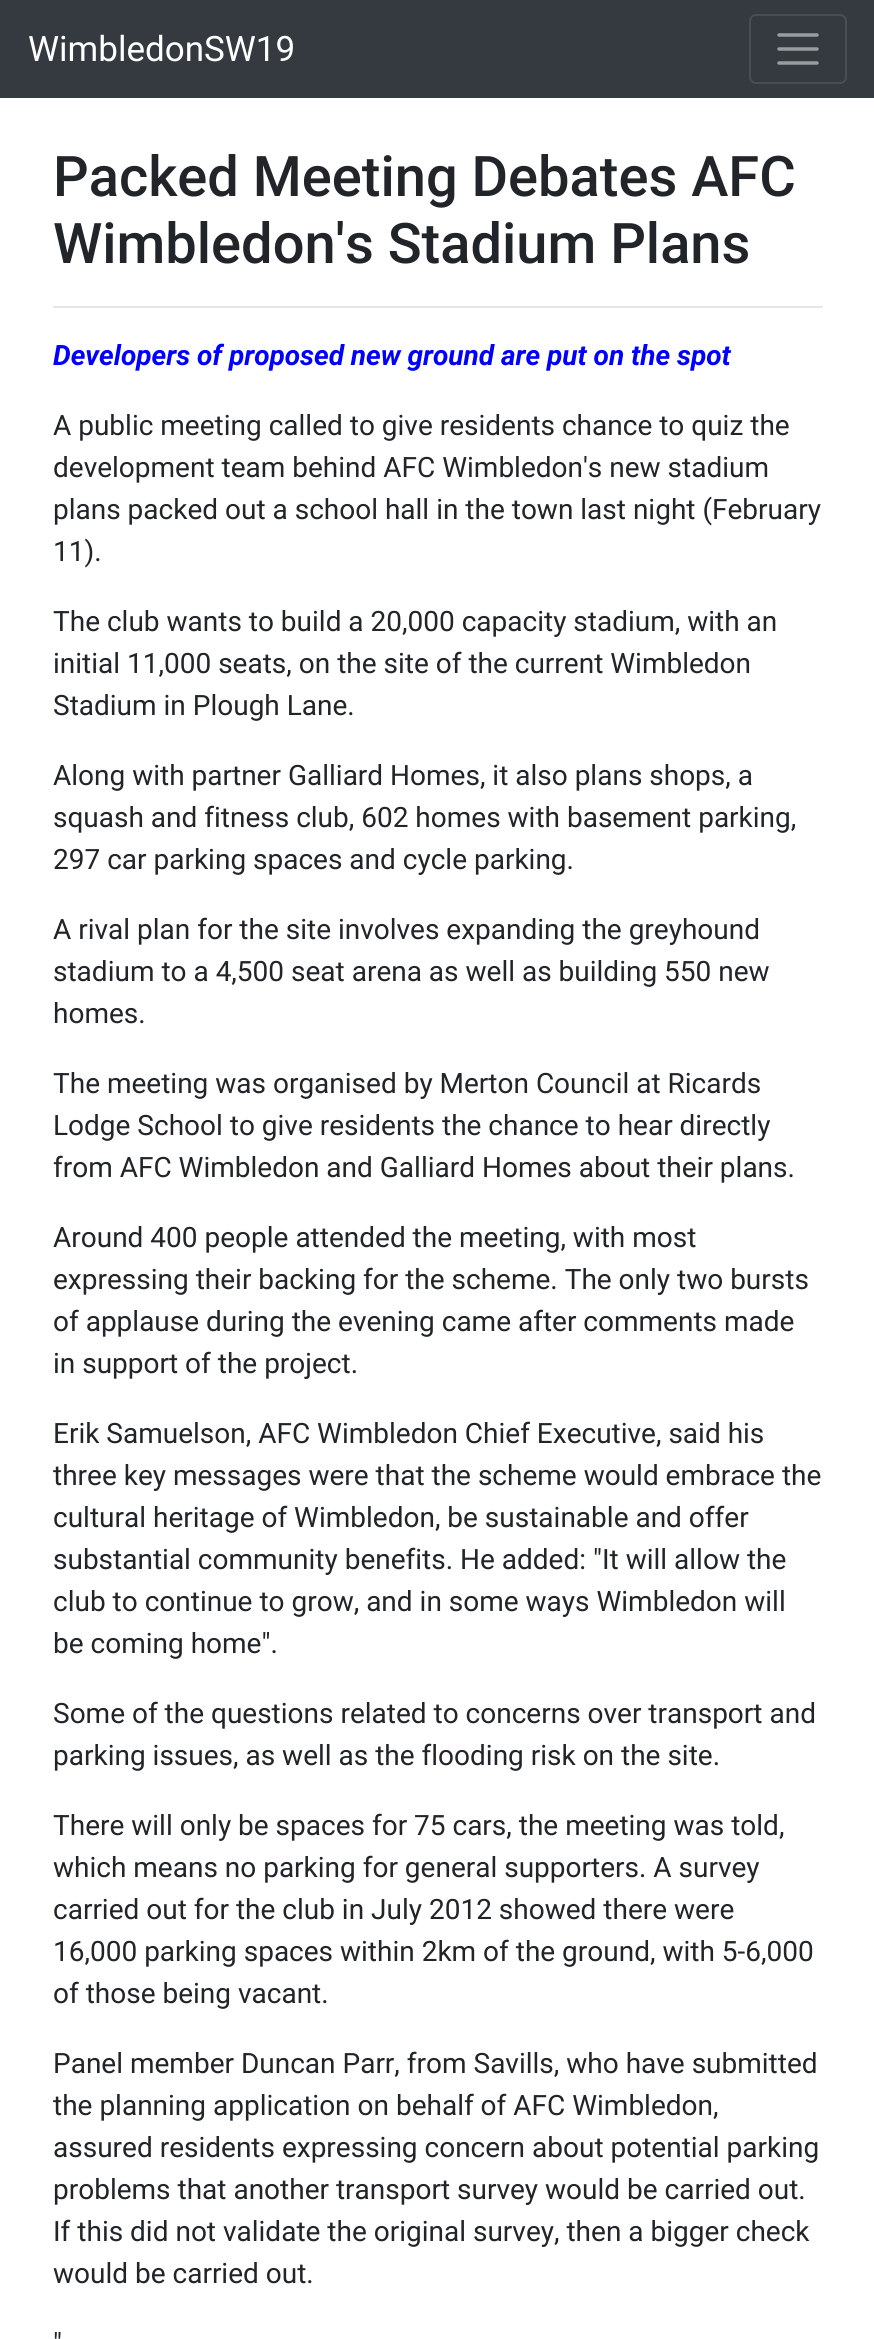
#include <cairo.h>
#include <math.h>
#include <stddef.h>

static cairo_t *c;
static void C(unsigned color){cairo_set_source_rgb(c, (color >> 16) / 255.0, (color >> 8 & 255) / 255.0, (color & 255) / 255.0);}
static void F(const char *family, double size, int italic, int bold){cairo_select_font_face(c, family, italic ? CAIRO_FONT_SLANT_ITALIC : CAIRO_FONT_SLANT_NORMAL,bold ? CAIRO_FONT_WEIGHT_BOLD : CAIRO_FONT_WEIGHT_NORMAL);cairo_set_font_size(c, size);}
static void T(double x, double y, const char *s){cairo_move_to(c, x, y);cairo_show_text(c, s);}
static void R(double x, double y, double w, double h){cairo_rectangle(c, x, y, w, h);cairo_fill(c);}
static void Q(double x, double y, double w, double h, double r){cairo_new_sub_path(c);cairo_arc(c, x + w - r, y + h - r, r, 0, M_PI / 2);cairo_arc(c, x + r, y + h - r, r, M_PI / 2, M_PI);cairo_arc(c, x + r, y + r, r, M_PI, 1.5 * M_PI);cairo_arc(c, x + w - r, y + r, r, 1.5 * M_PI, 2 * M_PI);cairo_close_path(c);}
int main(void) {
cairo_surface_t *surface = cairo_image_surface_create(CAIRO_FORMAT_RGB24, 874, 2339);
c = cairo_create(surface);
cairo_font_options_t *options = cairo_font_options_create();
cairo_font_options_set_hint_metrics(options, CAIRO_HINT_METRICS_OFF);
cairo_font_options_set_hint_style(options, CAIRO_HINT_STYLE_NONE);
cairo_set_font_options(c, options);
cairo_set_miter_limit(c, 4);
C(0xffffff);
cairo_paint(c);
C(0x343a40);
R(0,0,874,98);
F("Roboto",35,0,0);
C(0xffffff);
T(28,61,"WimbledonSW19");
Q(750,15,96,68,6);
C(0x484e53);
cairo_stroke(c);
cairo_new_path(c);
cairo_move_to(c,779,35);
cairo_line_to(c,817,35);
cairo_move_to(c,779,49);
cairo_line_to(c,817,49);
cairo_move_to(c,779,63);
cairo_line_to(c,817,63);
C(0x9a9da0);
cairo_set_line_width(c,3.5);
cairo_set_line_cap(c,CAIRO_LINE_CAP_ROUND);
cairo_stroke(c);
F("Roboto Medium",56,0,0);
C(0x212529);
T(53,196,"Packed Meeting Debates AFC");
T(53,263,"Wimbledon's Stadium Plans");
C(0xe6e6e6);
R(53,306,770,2);
F("Roboto",28,1,1);
C(0x0000ff);
T(53,365,"Developers of proposed new ground are put on the spot");
F("Roboto",28,0,0);
C(0x212529);
T(53,435,"A public meeting called to give residents chance to quiz the");
T(53,477,"development team behind AFC Wimbledon's new stadium");
T(53,519,"plans packed out a school hall in the town last night (February");
T(53,561,"11).");
T(53,631,"The club wants to build a 20,000 capacity stadium, with an");
T(53,673,"initial 11,000 seats, on the site of the current Wimbledon");
T(53,715,"Stadium in Plough Lane.");
T(53,785,"Along with partner Galliard Homes, it also plans shops, a");
T(53,827,"squash and fitness club, 602 homes with basement parking,");
T(53,869,"297 car parking spaces and cycle parking.");
T(53,939,"A rival plan for the site involves expanding the greyhound");
T(53,981,"stadium to a 4,500 seat arena as well as building 550 new");
T(53,1023,"homes.");
T(53,1093,"The meeting was organised by Merton Council at Ricards");
T(53,1135,"Lodge School to give residents the chance to hear directly");
T(53,1177,"from AFC Wimbledon and Galliard Homes about their plans.");
T(53,1247,"Around 400 people attended the meeting, with most");
T(53,1289,"expressing their backing for the scheme. The only two bursts");
T(53,1331,"of applause during the evening came after comments made");
T(53,1373,"in support of the project.");
T(53,1443,"Erik Samuelson, AFC Wimbledon Chief Executive, said his");
T(53,1485,"three key messages were that the scheme would embrace the");
T(53,1527,"cultural heritage of Wimbledon, be sustainable and offer");
T(53,1569,"substantial community benefits. He added: \"It will allow the");
T(53,1611,"club to continue to grow, and in some ways Wimbledon will");
T(53,1653,"be coming home\".");
T(53,1723,"Some of the questions related to concerns over transport and");
T(53,1765,"parking issues, as well as the flooding risk on the site.");
T(53,1835,"There will only be spaces for 75 cars, the meeting was told,");
T(53,1877,"which means no parking for general supporters. A survey");
T(53,1919,"carried out for the club in July 2012 showed there were");
T(53,1961,"16,000 parking spaces within 2km of the ground, with 5-6,000");
T(53,2003,"of those being vacant.");
T(53,2073,"Panel member Duncan Parr, from Savills, who have submitted");
T(53,2115,"the planning application on behalf of AFC Wimbledon,");
T(53,2157,"assured residents expressing concern about potential parking");
T(53,2199,"problems that another transport survey would be carried out.");
T(53,2241,"If this did not validate the original survey, then a bigger check");
T(53,2283,"would be carried out.");
T(53,2353,"\"");
cairo_surface_write_to_png(surface, "o.png");
cairo_font_options_destroy(options);
cairo_destroy(c);
cairo_surface_destroy(surface);
return 0;
}
